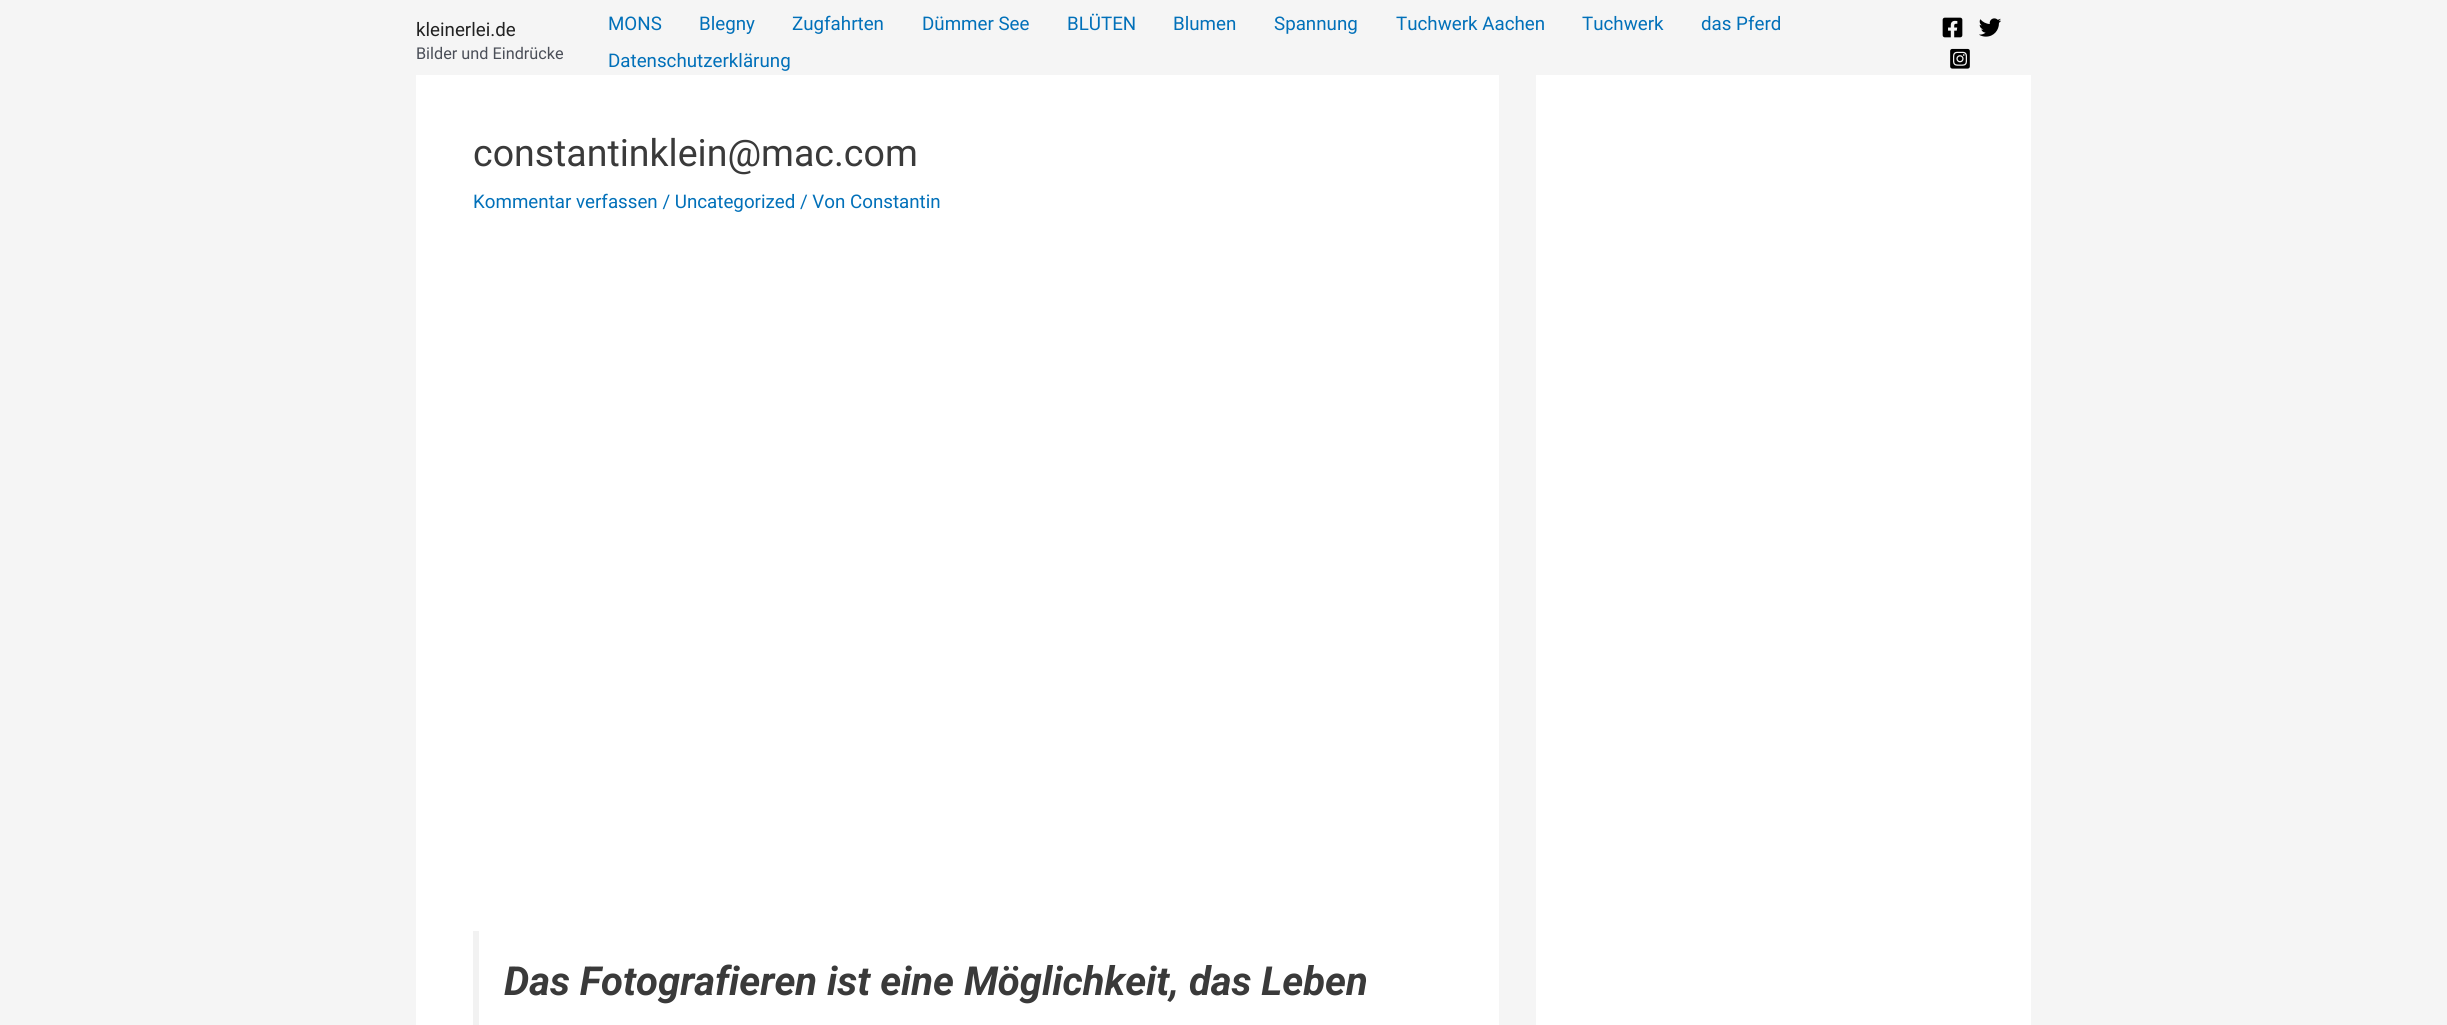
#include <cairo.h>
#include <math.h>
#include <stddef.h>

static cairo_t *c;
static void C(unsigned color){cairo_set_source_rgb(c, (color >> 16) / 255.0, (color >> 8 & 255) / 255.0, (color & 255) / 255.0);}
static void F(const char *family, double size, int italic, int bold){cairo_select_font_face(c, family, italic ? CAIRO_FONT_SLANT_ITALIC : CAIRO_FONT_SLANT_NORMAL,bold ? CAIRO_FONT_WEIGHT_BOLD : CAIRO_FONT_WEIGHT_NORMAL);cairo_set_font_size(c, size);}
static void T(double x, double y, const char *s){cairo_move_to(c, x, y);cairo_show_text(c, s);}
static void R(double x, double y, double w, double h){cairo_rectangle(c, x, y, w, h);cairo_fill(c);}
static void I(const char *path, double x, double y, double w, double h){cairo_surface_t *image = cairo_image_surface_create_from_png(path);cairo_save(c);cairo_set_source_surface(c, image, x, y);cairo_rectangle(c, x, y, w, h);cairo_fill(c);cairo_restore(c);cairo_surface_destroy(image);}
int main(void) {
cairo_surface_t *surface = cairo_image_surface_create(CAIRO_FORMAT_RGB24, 2447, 1025);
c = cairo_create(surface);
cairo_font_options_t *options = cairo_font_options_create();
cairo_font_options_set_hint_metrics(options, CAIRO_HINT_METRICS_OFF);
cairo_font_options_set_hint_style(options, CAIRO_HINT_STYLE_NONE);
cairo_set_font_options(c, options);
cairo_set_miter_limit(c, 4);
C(0xf5f5f5);
cairo_paint(c);
F("Roboto",18.75,0,0);
C(0x222222);
T(416,36,"kleinerlei.de");
F("Roboto",16.25,0,0);
C(0x4b4f58);
T(416,59,"Bilder und Eindrücke");
F("Roboto",18.75,0,0);
C(0x0170b9);
T(608,30,"MONS");
T(699,30,"Blegny");
T(792,30,"Zugfahrten");
T(922,30,"Dümmer See");
T(1067,30,"BLÜTEN");
T(1173,30,"Blumen");
T(1274,30,"Spannung");
T(1396,30,"Tuchwerk Aachen");
T(1582,30,"Tuchwerk");
T(1701,30,"das Pferd");
T(608,67,"Datenschutzerklärung");
I("1.png",1942,17,21,21);
I("2.png",1979,18,22,19);
I("3.png",1950,48,20,21);
C(0xffffff);
R(416,75,1083,950);
F("Roboto",37.5,0,0);
C(0x3a3a3a);
T(473,166,"constantinklein@mac.com");
F("Roboto",18.75,0,0);
C(0x0170b9);
T(473,208,"Kommentar verfassen / Uncategorized / Von Constantin");
C(0xf2f2f2);
R(473,931,6,94);
F("Roboto",40,1,1);
C(0x3a3a3a);
T(504,995,"Das Fotografieren ist eine Möglichkeit, das Leben");
C(0xffffff);
R(1536,75,495,950);
cairo_surface_write_to_png(surface, "o.png");
cairo_font_options_destroy(options);
cairo_destroy(c);
cairo_surface_destroy(surface);
return 0;
}
